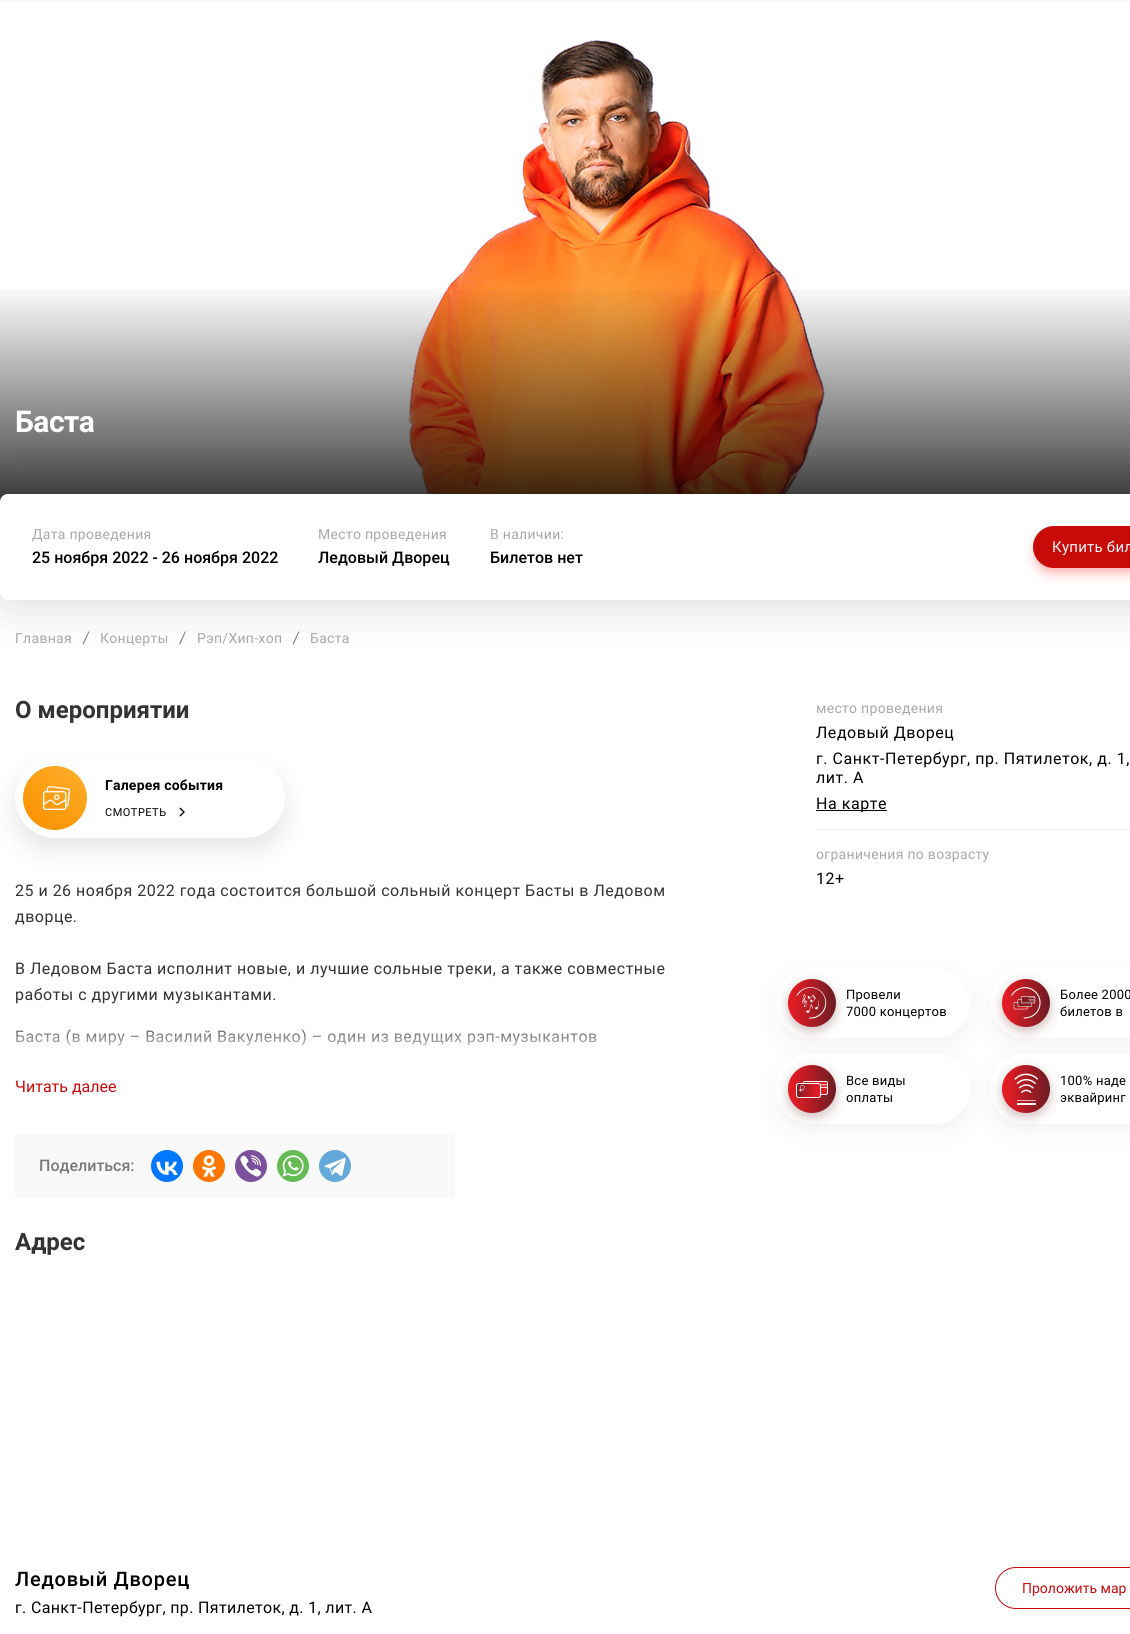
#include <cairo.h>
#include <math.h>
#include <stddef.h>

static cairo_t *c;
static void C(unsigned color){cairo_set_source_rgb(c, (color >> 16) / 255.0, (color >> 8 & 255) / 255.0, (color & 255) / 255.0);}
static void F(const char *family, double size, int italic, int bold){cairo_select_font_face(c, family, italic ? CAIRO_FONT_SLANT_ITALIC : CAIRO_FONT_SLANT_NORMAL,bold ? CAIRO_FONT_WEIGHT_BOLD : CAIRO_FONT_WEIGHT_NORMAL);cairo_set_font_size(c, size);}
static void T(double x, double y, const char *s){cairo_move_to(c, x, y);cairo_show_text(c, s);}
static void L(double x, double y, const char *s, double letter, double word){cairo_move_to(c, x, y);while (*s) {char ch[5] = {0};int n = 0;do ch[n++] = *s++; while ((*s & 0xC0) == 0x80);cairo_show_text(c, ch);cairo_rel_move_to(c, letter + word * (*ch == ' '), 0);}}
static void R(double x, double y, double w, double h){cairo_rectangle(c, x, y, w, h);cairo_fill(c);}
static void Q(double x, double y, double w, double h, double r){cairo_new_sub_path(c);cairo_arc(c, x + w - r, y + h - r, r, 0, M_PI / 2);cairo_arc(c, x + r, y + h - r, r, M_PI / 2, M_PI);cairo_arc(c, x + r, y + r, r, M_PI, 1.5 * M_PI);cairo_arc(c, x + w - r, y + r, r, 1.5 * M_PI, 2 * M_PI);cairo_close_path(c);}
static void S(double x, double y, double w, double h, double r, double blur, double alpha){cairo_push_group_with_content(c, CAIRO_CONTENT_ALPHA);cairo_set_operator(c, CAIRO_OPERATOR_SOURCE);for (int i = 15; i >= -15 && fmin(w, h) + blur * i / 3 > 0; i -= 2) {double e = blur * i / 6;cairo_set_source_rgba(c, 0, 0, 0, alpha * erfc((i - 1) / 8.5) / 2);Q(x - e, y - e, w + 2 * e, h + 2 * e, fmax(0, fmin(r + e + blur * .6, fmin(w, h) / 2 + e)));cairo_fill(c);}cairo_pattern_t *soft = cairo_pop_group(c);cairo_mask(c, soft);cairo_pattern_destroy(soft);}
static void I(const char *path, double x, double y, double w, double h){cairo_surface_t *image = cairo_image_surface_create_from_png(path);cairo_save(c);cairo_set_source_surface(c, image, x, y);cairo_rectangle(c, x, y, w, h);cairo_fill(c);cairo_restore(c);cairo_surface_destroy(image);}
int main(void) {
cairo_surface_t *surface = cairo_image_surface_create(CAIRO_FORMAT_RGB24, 1130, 1634);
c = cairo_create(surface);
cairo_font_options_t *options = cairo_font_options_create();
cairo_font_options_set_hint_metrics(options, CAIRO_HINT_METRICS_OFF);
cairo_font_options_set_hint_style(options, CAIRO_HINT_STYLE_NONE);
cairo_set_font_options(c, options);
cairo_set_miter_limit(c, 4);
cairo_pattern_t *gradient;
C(0xffffff);
cairo_paint(c);
C(0x000000);
S(0,-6,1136,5,0,2,.18);
I("1.png",408,38,420,456);
gradient = cairo_pattern_create_linear(600,284,600,524);
cairo_pattern_add_color_stop_rgba(gradient,0,0,0,0,0);
cairo_pattern_add_color_stop_rgba(gradient,1,0,0,0,.84);
cairo_set_source(c,gradient);
cairo_pattern_destroy(gradient);
R(0,290,1130,212);
F("Roboto",30,0,1);
C(0xffffff);
L(15,432,"Баста",-.5,0);
C(0x797979);
cairo_new_path(c);
cairo_move_to(c,82.5,644);
cairo_line_to(c,88.5,631.5);
cairo_line_to(c,89.5,631.5);
cairo_line_to(c,83.5,644.5);
cairo_close_path(c);
cairo_fill(c);
cairo_new_path(c);
cairo_move_to(c,179,644);
cairo_line_to(c,185,631.5);
cairo_line_to(c,186,631.5);
cairo_line_to(c,180,644.5);
cairo_close_path(c);
cairo_fill(c);
cairo_new_path(c);
cairo_move_to(c,292.5,644);
cairo_line_to(c,298.5,631.5);
cairo_line_to(c,299.5,631.5);
cairo_line_to(c,293.5,644.5);
cairo_close_path(c);
cairo_fill(c);
C(0x000000);
S(0,496,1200,106,8,27,.15);
C(0xffffff);
Q(0,494,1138,106,8);
cairo_fill(c);
F("Roboto",14,0,0);
C(0xa9a9a9);
L(32,539,"Дата проведения",.3,0);
F("Roboto Medium",16,0,0);
C(0x000000);
T(32,563,"25 ноября 2022 - 26 ноября 2022");
F("Roboto",14,0,0);
C(0xa9a9a9);
L(318,539,"Место проведения",.3,0);
F("Roboto Medium",16,0,0);
C(0x000000);
T(318,563,"Ледовый Дворец");
F("Roboto",14,0,0);
C(0xa9a9a9);
L(490,539,"В наличии:",.3,0);
F("Roboto Medium",16,0,0);
C(0x000000);
T(490,563,"Билетов нет");
C(0xee0504);
S(1037,537,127,34,17,6.5,.4);
C(0xc80a09);
Q(1033,526,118,42,21);
cairo_fill(c);
F("Roboto",15,0,0);
C(0xf8f9fa);
L(1052,552,"Купить бил",.25,0);
F("Roboto",14,0,0);
C(0xa9a9a9);
L(15,643,"Главная",.3,0);
L(100,643,"Концерты",.3,0);
L(197,643,"Рэп/Хип-хоп",.3,0);
L(310,643,"Баста",.3,0);
F("Roboto",24,0,1);
C(0x333333);
T(15,718,"О мероприятии");
C(0x000000);
S(15,770,270,80,40,12.5,.1);
C(0xffffff);
Q(15,758,270,80,40);
cairo_fill(c);
I("2.png",23,766,64,64);
F("Roboto",14,0,1);
C(0x000000);
L(105,790,"Галерея события",.2,0);
F("Roboto",11,0,0);
L(105,816,"СМОТРЕТЬ",.5,0);
I("3.png",179,807,6,10);
F("Roboto",16,0,0);
C(0x333333);
L(15,896,"25 и 26 ноября 2022 года состоится большой сольный концерт Басты в Ледовом",.5,0);
L(15,922,"дворце.",.5,0);
L(15,974,"В Ледовом Баста исполнит новые, и лучшие сольные треки, а также совместные",.5,0);
L(15,1000,"работы с другими музыкантами.",.5,0);
L(15,1042,"Баста (в миру – Василий Вакуленко) – один из ведущих рэп-музыкантов",.5,0);
gradient = cairo_pattern_create_linear(366,1020,366,1060);
cairo_pattern_add_color_stop_rgba(gradient,0,1,1,1,0);
cairo_pattern_add_color_stop_rgba(gradient,1,1,1,1,1);
cairo_set_source(c,gradient);
cairo_pattern_destroy(gradient);
R(16,1029,581,17);
C(0xc80a09);
T(15,1092,"Читать далее");
C(0xf9f9f9);
Q(15,1134,440,64,3);
cairo_fill(c);
F("Roboto Medium",16,0,0);
C(0x797979);
T(39,1171,"Поделиться:");
C(0x0077ff);
cairo_new_path(c);
cairo_arc(c,167,1166,16,0,2 * M_PI);
cairo_fill(c);
I("4.png",156,1161,22,14);
C(0xff7700);
cairo_arc(c,209,1166,16,0,2 * M_PI);
cairo_fill(c);
I("5.png",201,1155,16,22);
C(0x7b519d);
cairo_arc(c,251,1166,16,0,2 * M_PI);
cairo_fill(c);
I("6.png",240,1155,22,22);
C(0x65bc54);
cairo_arc(c,293,1166,16,0,2 * M_PI);
cairo_fill(c);
I("7.png",282,1155,22,22);
C(0x64a9dc);
cairo_arc(c,335,1166,16,0,2 * M_PI);
cairo_fill(c);
I("8.png",324,1158,22,18);
C(0xe9ecef);
R(816,829,314,1);
F("Roboto",14,0,0);
C(0xa9a9a9);
L(816,713,"место проведения",.3,0);
F("Roboto",16,0,0);
C(0x000000);
L(816,738,"Ледовый Дворец",.55,0);
L(816,764,"г. Санкт-Петербург, пр. Пятилеток, д. 1,",.55,0);
L(816,783,"лит. А",.55,0);
R(816,810,71,1);
L(816,809,"На карте",.55,0);
F("Roboto",14,0,0);
C(0xa9a9a9);
L(816,859,"ограничения по возрасту",.3,0);
F("Roboto",16,0,0);
C(0x000000);
L(816,884,"12+",.55,0);
C(0x000000);
S(776,976,194,70,35,12.5,.05);
C(0xffffff);
Q(776,968,194,70,35);
cairo_fill(c);
C(0x510003);
S(788,983,48,48,24,5.5,.26);
gradient = cairo_pattern_create_linear(836,1003,788,1003);
cairo_pattern_add_color_stop_rgba(gradient,0,0.42,0.11,0.141,1);
cairo_pattern_add_color_stop_rgba(gradient,.05,0.447,0.11,0.141,1);
cairo_pattern_add_color_stop_rgba(gradient,.7,0.788,0.11,0.141,1);
cairo_pattern_add_color_stop_rgba(gradient,1,0.925,0.11,0.141,1);
cairo_set_source(c,gradient);
cairo_pattern_destroy(gradient);
cairo_arc(c,812,1003,24,0,2 * M_PI);
cairo_fill(c);
I("9.png",796,987,31,32);
F("Roboto",13,0,0);
C(0x000000);
L(846,999,"Провели",.25,0);
L(846,1016,"7000 концертов",.25,0);
C(0x000000);
S(990,976,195,70,35,12.5,.05);
C(0xffffff);
Q(990,968,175,70,35);
cairo_fill(c);
C(0x510003);
S(1002,983,48,48,24,5.5,.26);
gradient = cairo_pattern_create_linear(1050,1003,1002,1003);
cairo_pattern_add_color_stop_rgba(gradient,0,0.42,0.11,0.141,1);
cairo_pattern_add_color_stop_rgba(gradient,.05,0.447,0.11,0.141,1);
cairo_pattern_add_color_stop_rgba(gradient,.7,0.788,0.11,0.141,1);
cairo_pattern_add_color_stop_rgba(gradient,1,0.925,0.11,0.141,1);
cairo_set_source(c,gradient);
cairo_pattern_destroy(gradient);
cairo_arc(c,1026,1003,24,0,2 * M_PI);
cairo_fill(c);
I("10.png",1011,987,30,32);
C(0x000000);
L(1060,999,"Более 2000",.25,0);
L(1060,1016,"билетов в",.25,0);
C(0x000000);
S(776,1062,194,70,35,12.5,.05);
C(0xffffff);
Q(776,1054,194,70,35);
cairo_fill(c);
C(0x510003);
S(788,1069,48,48,24,5.5,.26);
gradient = cairo_pattern_create_linear(836,1089,788,1089);
cairo_pattern_add_color_stop_rgba(gradient,0,0.42,0.11,0.141,1);
cairo_pattern_add_color_stop_rgba(gradient,.05,0.447,0.11,0.141,1);
cairo_pattern_add_color_stop_rgba(gradient,.7,0.788,0.11,0.141,1);
cairo_pattern_add_color_stop_rgba(gradient,1,0.925,0.11,0.141,1);
cairo_set_source(c,gradient);
cairo_pattern_destroy(gradient);
cairo_arc(c,812,1089,24,0,2 * M_PI);
cairo_fill(c);
I("11.png",796,1081,32,17);
C(0x000000);
L(846,1085,"Все виды",.25,0);
L(846,1102,"оплаты",.25,0);
C(0x000000);
S(990,1062,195,70,35,12.5,.05);
C(0xffffff);
Q(990,1054,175,70,35);
cairo_fill(c);
C(0x510003);
S(1002,1069,48,48,24,5.5,.26);
gradient = cairo_pattern_create_linear(1050,1089,1002,1089);
cairo_pattern_add_color_stop_rgba(gradient,0,0.42,0.11,0.141,1);
cairo_pattern_add_color_stop_rgba(gradient,.05,0.447,0.11,0.141,1);
cairo_pattern_add_color_stop_rgba(gradient,.7,0.788,0.11,0.141,1);
cairo_pattern_add_color_stop_rgba(gradient,1,0.925,0.11,0.141,1);
cairo_set_source(c,gradient);
cairo_pattern_destroy(gradient);
cairo_arc(c,1026,1089,24,0,2 * M_PI);
cairo_fill(c);
I("12.png",1014,1073,24,32);
C(0x000000);
L(1060,1085,"100% наде",.25,0);
L(1060,1102,"эквайринг",.25,0);
F("Roboto",24,0,1);
C(0x333333);
T(15,1250,"Адрес");
F("Roboto Medium",20,0,0);
C(0x000000);
L(15,1586,"Ледовый Дворец",.75,0);
F("Roboto",16,0,0);
L(15,1613,"г. Санкт-Петербург, пр. Пятилеток, д. 1, лит. А",.35,0);
Q(995.5,1567.5,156,41,20.5);
C(0xc80a09);
cairo_set_line_width(c,1);
cairo_stroke(c);
F("Roboto",14,0,0);
T(1022,1593,"Проложить мар");
cairo_surface_write_to_png(surface, "o.png");
cairo_font_options_destroy(options);
cairo_destroy(c);
cairo_surface_destroy(surface);
return 0;
}
